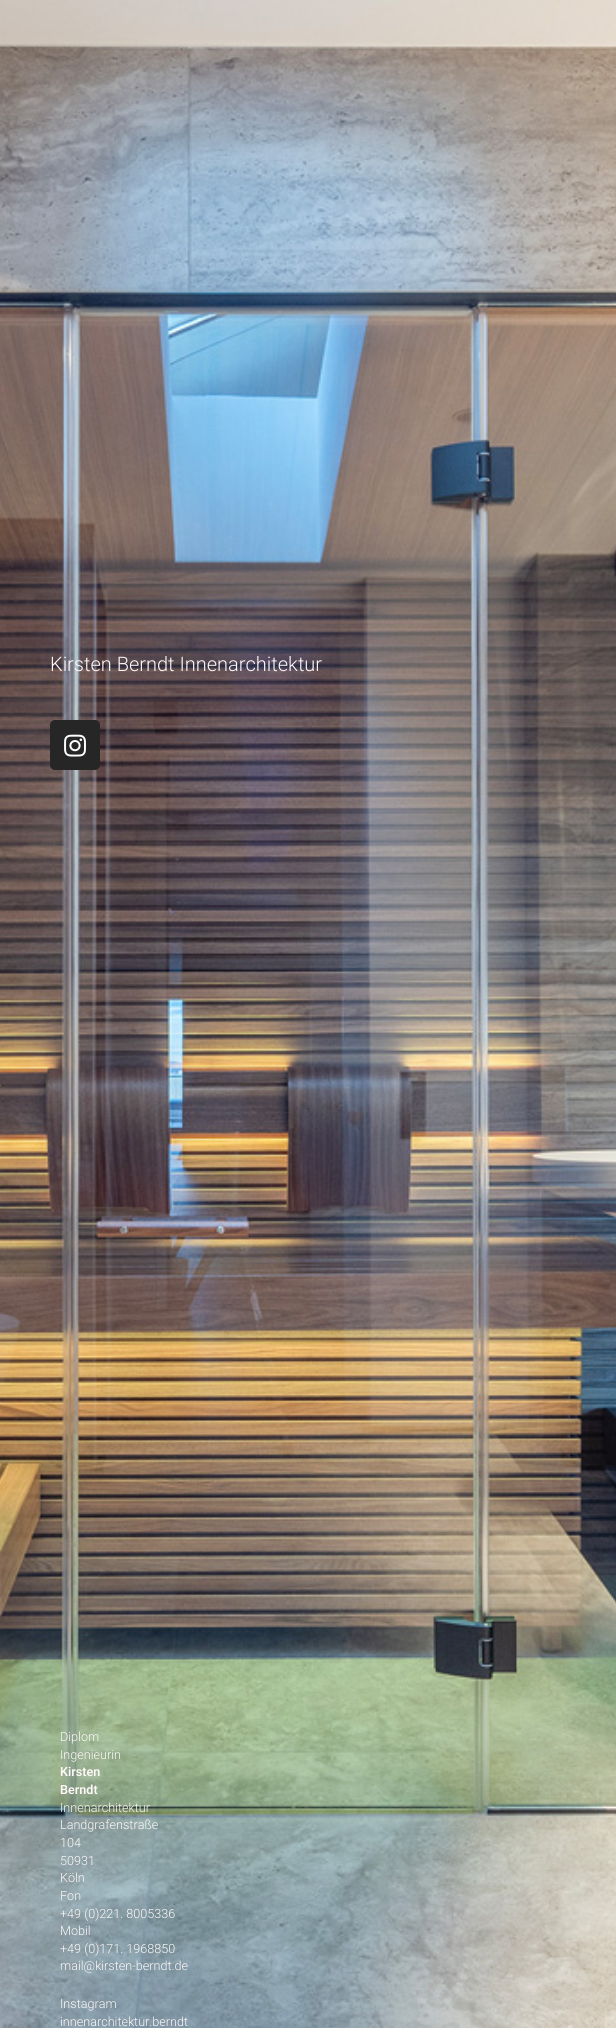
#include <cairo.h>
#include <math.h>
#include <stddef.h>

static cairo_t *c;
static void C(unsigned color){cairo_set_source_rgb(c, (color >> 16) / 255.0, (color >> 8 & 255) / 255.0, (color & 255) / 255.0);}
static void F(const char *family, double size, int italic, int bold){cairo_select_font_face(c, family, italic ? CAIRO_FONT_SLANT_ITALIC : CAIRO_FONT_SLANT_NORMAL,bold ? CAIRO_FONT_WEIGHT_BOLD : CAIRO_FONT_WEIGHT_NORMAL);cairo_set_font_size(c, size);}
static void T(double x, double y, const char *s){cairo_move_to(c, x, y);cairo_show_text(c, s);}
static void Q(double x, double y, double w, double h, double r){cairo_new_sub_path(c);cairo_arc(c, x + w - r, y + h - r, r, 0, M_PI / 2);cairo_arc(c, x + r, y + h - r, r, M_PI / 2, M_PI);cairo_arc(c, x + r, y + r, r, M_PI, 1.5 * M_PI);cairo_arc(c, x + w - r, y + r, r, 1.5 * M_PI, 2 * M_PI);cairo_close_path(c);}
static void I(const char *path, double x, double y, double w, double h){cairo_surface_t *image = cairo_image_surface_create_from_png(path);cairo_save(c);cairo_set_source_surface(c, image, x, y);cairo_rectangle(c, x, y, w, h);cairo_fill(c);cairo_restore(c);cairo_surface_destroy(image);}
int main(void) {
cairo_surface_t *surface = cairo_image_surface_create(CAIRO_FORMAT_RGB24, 616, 2028);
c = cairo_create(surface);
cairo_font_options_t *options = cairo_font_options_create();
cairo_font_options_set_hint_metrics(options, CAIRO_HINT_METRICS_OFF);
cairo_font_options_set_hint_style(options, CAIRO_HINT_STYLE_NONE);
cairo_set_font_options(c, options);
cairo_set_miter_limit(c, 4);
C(0xffffff);
cairo_paint(c);
I("1.png",0,0,616,2028);
F("Roboto Light",20,0,0);
C(0xfff8f8);
T(50,671,"Kirsten Berndt Innenarchitektur");
C(0x262626);
Q(50,720,50,50,5);
cairo_fill(c);
I("2.png",64,734,22,23);
F("Roboto Light",12.6,0,0);
C(0xfff8f8);
T(60,1741,"Diplom");
T(60,1759,"Ingenieurin");
F("Roboto SemiBold",12.6,0,0);
T(60,1776,"Kirsten");
T(60,1794,"Berndt");
F("Roboto Light",12.6,0,0);
T(60,1812,"Innenarchitektur");
T(60,1829,"Landgrafenstraße");
T(60,1847,"104");
T(60,1865,"50931");
T(60,1882,"Köln");
T(60,1900,"Fon");
T(60,1918,"+49 (0)221. 8005336");
T(60,1935,"Mobil");
T(60,1953,"+49 (0)171. 1968850");
T(60,1970,"mail@kirsten-berndt.de");
T(60,2008,"Instagram");
T(60,2026,"innenarchitektur.berndt");
cairo_surface_write_to_png(surface, "o.png");
cairo_font_options_destroy(options);
cairo_destroy(c);
cairo_surface_destroy(surface);
return 0;
}
